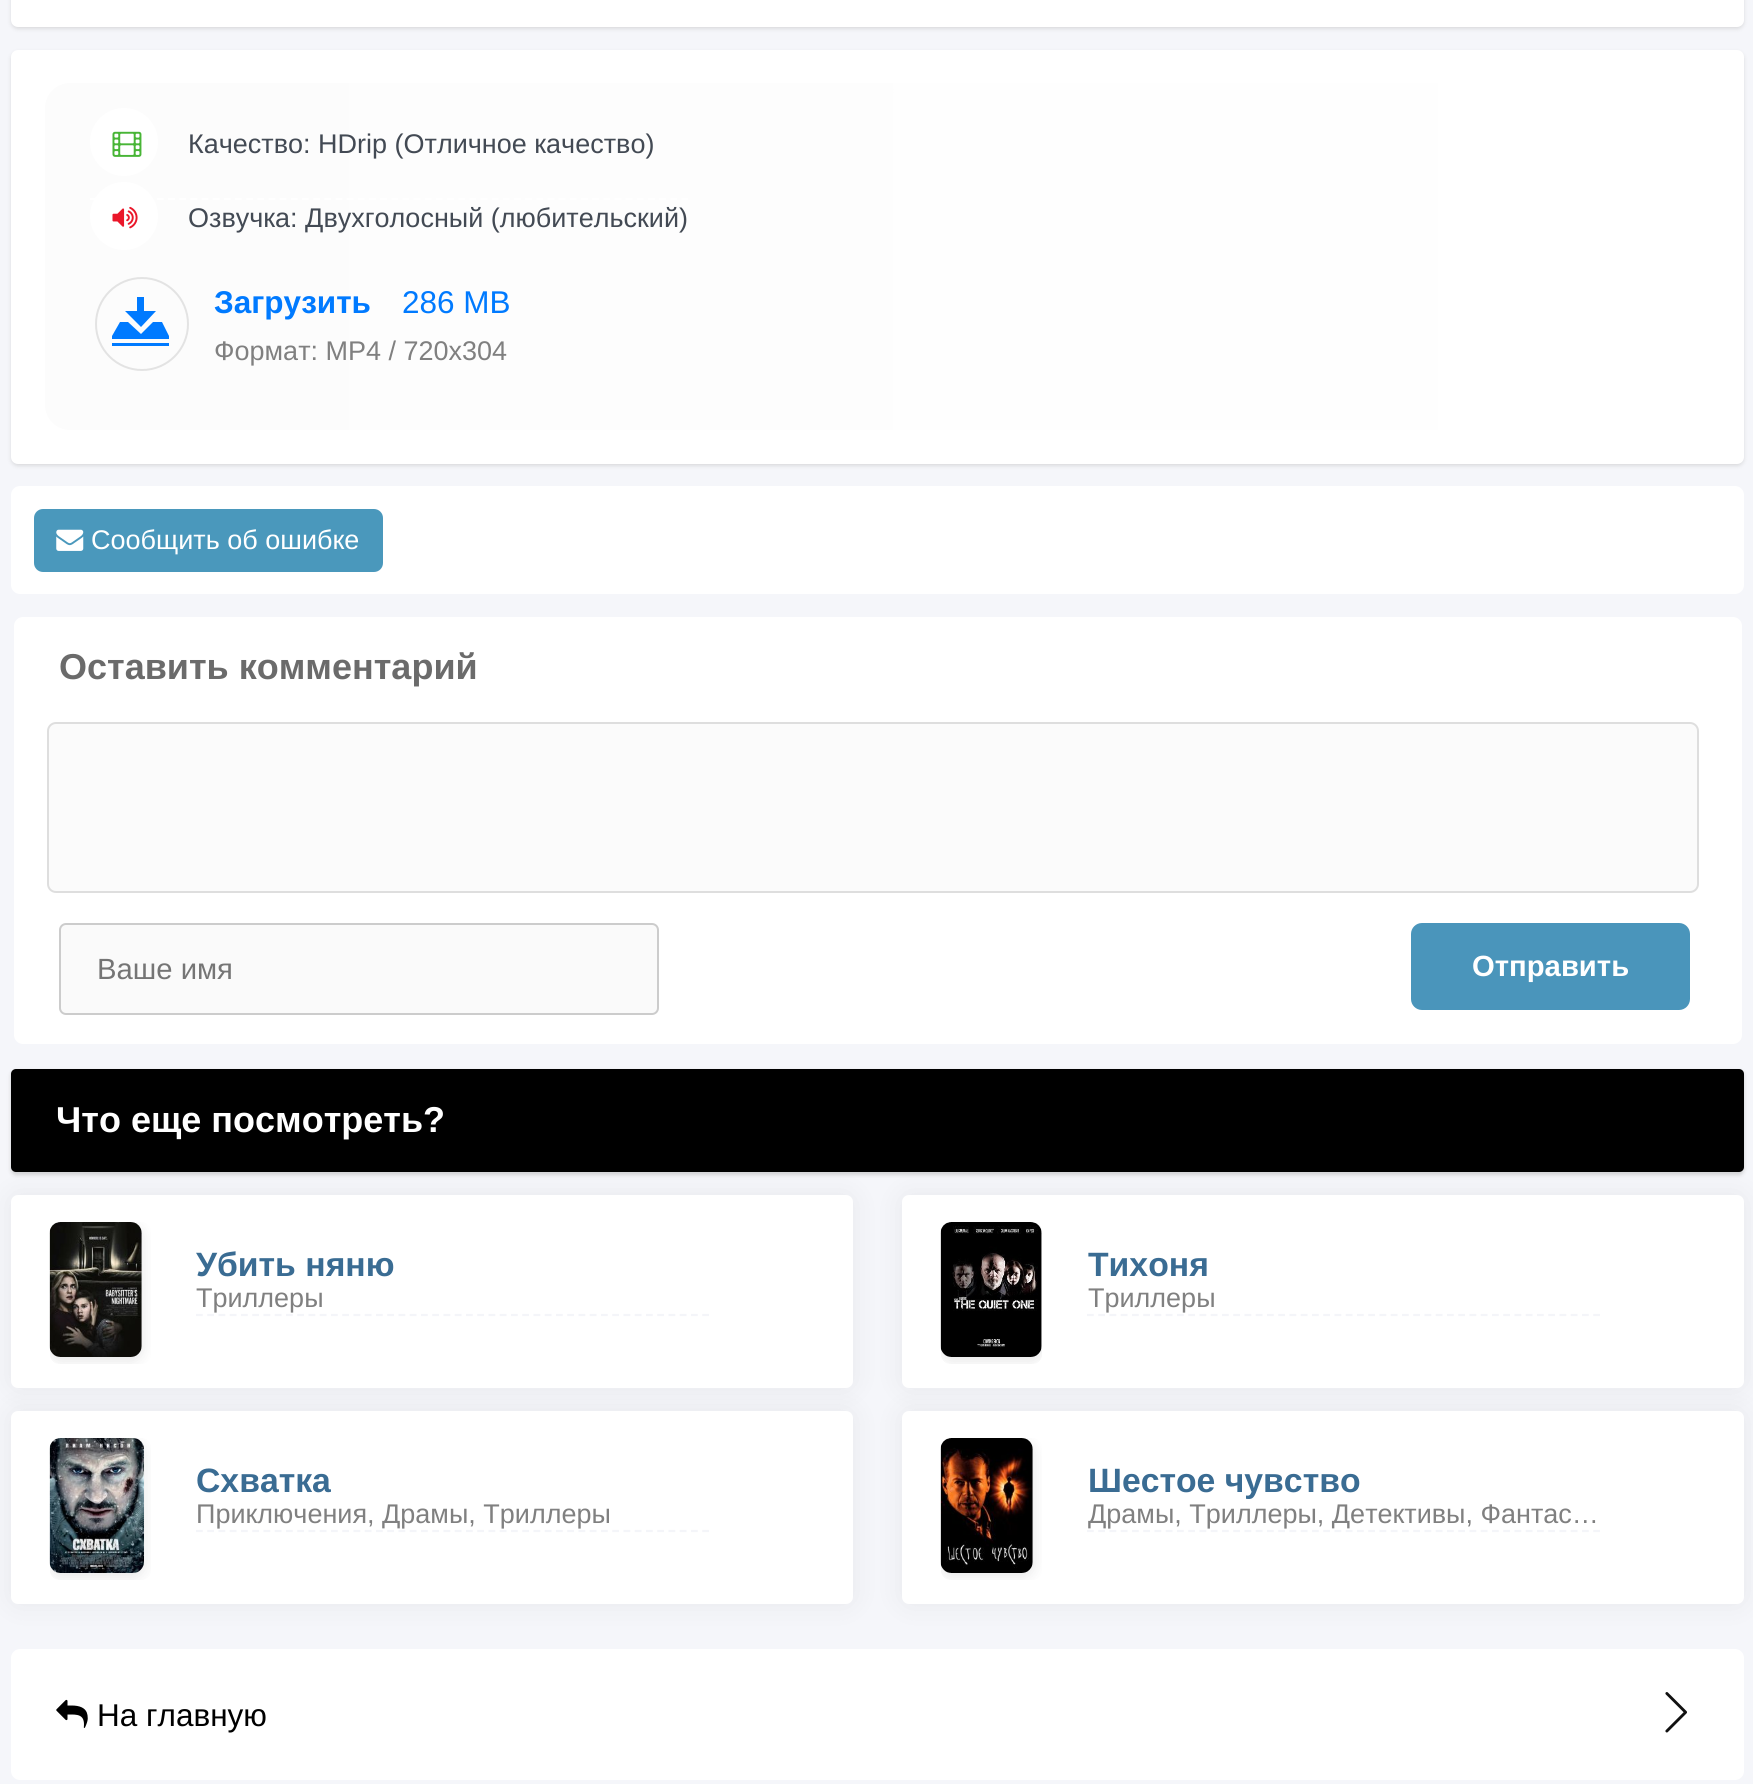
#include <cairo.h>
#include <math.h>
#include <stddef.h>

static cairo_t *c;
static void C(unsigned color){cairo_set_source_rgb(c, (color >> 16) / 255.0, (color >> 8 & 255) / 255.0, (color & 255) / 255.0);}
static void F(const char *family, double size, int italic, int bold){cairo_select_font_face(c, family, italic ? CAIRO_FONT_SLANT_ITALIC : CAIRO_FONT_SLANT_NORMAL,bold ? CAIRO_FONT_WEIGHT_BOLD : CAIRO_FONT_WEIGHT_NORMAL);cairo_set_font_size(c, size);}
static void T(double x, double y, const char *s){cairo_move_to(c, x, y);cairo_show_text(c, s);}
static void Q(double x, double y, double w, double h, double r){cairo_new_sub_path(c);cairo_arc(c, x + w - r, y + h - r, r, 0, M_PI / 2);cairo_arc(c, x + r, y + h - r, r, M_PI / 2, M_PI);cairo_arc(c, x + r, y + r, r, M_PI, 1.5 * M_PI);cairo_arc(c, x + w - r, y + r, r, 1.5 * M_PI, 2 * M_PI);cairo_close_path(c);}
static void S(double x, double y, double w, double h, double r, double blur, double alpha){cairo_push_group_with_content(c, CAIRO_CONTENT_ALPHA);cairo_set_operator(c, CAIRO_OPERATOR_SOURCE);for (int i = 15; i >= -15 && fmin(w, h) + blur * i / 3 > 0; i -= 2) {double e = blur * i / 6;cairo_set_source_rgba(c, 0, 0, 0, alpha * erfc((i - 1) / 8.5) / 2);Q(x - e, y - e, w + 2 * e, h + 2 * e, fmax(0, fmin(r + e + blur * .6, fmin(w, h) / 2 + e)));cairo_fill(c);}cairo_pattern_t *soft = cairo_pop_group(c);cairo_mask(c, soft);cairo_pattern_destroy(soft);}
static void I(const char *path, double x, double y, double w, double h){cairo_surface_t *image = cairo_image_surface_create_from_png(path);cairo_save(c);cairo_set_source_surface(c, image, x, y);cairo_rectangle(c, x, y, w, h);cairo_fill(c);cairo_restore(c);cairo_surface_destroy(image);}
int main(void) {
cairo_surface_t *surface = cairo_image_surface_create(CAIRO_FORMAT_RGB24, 1753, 1784);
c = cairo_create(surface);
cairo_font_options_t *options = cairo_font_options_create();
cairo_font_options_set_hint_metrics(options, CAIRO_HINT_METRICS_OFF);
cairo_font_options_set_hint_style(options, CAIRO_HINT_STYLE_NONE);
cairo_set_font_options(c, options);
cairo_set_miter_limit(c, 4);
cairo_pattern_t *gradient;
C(0xf5f6fa);
cairo_paint(c);
C(0xa4a4a4);
S(11,-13,1733,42,7,2,.33);
C(0xffffff);
Q(11,-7,1733,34,7);
cairo_fill(c);
C(0xa4a4a4);
S(11,52,1733,414,7,2,.33);
C(0xffffff);
Q(11,50,1733,414,7);
cairo_fill(c);
gradient = cairo_pattern_create_linear(1710,257,45,256);
cairo_pattern_add_color_stop_rgba(gradient,0,1,1,1,1);
cairo_pattern_add_color_stop_rgba(gradient,1,0.988,0.988,0.988,1);
cairo_set_source(c,gradient);
cairo_pattern_destroy(gradient);
Q(45,83,1665,347,25);
cairo_fill(c);
cairo_new_path(c);
cairo_move_to(c,90,199);
cairo_line_to(c,688.5,199);
C(0xffffff);
cairo_set_line_width(c,2.2);
cairo_set_dash(c,(double[]){6.75,4.41},2,0);
cairo_stroke(c);
cairo_arc(c,124,142,34,0,2 * M_PI);
cairo_fill(c);
I("1.png",112,131,30,26);
F("Liberation Sans",27,0,0);
C(0x434a54);
T(188,153,"Качество: HDrip (Отличное качество)");
C(0xffffff);
cairo_new_path(c);
cairo_arc(c,124,216,34,0,2 * M_PI);
cairo_fill(c);
I("2.png",112,206,26,23);
C(0x434a54);
T(188,227,"Озвучка: Двухголосный (любительский)");
C(0x007aff);
cairo_new_path(c);
cairo_move_to(c,162,322);
cairo_line_to(c,153,322);
cairo_line_to(c,141,334);
cairo_line_to(c,128,322);
cairo_line_to(c,120,322);
cairo_line_to(c,112,336);
cairo_line_to(c,112,339);
cairo_line_to(c,169,339);
cairo_line_to(c,169,336);
cairo_close_path(c);
cairo_move_to(c,112,343);
cairo_line_to(c,169,343);
cairo_line_to(c,169,346);
cairo_line_to(c,112,346);
cairo_close_path(c);
cairo_move_to(c,144,311);
cairo_line_to(c,144,297);
cairo_line_to(c,137,297);
cairo_line_to(c,137,311);
cairo_line_to(c,125,311);
cairo_line_to(c,141,327);
cairo_line_to(c,156,311);
cairo_close_path(c);
cairo_fill(c);
cairo_arc(c,142,324,46,0,2 * M_PI);
C(0xe3e3e3);
cairo_set_line_width(c,2);
cairo_set_dash(c,NULL,0,0);
cairo_stroke(c);
F("Liberation Sans",31.5,0,1);
C(0x007aff);
T(214,313,"Загрузить");
F("Liberation Sans",31.5,0,0);
T(402,313,"286 MB");
F("Liberation Sans",27,0,0);
C(0x808080);
T(214,360,"Формат: MP4 / 720x304");
C(0xffffff);
Q(11,486,1733,108,9);
cairo_fill(c);
C(0x4a98bc);
Q(34,509,349,63,9);
cairo_fill(c);
I("3.png",56,529,28,22);
C(0xffffff);
T(91,549,"Сообщить об ошибке");
Q(14,617,1728,427,9);
cairo_fill(c);
F("Liberation Sans",36,0,1);
C(0x6b6b6b);
T(59,679,"Оставить комментарий");
C(0xfbfbfb);
Q(48,723,1650,169,8);
cairo_fill_preserve(c);
C(0xdedede);
cairo_stroke(c);
C(0xfafafa);
Q(60,924,598,90,6);
cairo_fill_preserve(c);
C(0xcccccc);
cairo_stroke(c);
F("Liberation Sans",29.25,0,0);
C(0x757575);
T(97,979,"Ваше имя");
C(0x4a95bb);
Q(1411,923,279,87,11);
cairo_fill(c);
F("Liberation Sans",29.25,0,1);
C(0xffffff);
T(1472,976,"Отправить");
C(0xa4a4a4);
S(11,1071,1733,104,5,2,.45);
C(0x000000);
Q(11,1069,1733,103,5);
cairo_fill(c);
F("Liberation Sans",36,0,1);
C(0xffffff);
T(56,1132,"Что еще посмотреть?");
C(0x000000);
S(11,1195,842,193,7,14.5,.06);
C(0xffffff);
Q(11,1195,842,193,7);
cairo_fill(c);
cairo_save(c);
Q(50,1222,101,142,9);
cairo_clip(c);
C(0x000000);
S(50,1226,92,135,11,7,.1);
cairo_restore(c);
I("4.png",49,1222,93,135);
cairo_new_path(c);
cairo_move_to(c,196,1315);
cairo_line_to(c,709,1315);
C(0xf4f5f9);
cairo_set_line_width(c,2.2);
cairo_set_dash(c,(double[]){6.75,4.5},2,0);
cairo_stroke(c);
F("Liberation Sans",33.75,0,1);
C(0x3a6c93);
T(196,1276,"Убить няню");
F("Liberation Sans",27,0,0);
C(0x808080);
T(196,1307,"Триллеры");
C(0x000000);
S(902,1195,842,193,7,14.5,.06);
C(0xffffff);
Q(902,1195,842,193,7);
cairo_fill(c);
cairo_save(c);
Q(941,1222,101,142,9);
cairo_clip(c);
C(0x000000);
S(941,1226,101,135,11,7,.1);
cairo_restore(c);
I("5.png",940,1222,102,135);
cairo_new_path(c);
cairo_move_to(c,1087,1315);
cairo_line_to(c,1600,1315);
C(0xf4f5f9);
cairo_stroke(c);
F("Liberation Sans",33.75,0,1);
C(0x3a6c93);
T(1088,1276,"Тихоня");
F("Liberation Sans",27,0,0);
C(0x808080);
T(1088,1307,"Триллеры");
C(0x000000);
S(11,1411,842,193,7,14.5,.06);
C(0xffffff);
Q(11,1411,842,193,7);
cairo_fill(c);
cairo_save(c);
Q(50,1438,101,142,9);
cairo_clip(c);
C(0x000000);
S(50,1442,94,135,11,7,.1);
cairo_restore(c);
I("6.png",49,1438,95,135);
cairo_new_path(c);
cairo_move_to(c,196,1531);
cairo_line_to(c,709,1531);
C(0xf4f5f9);
cairo_stroke(c);
F("Liberation Sans",33.75,0,1);
C(0x3a6c93);
T(196,1492,"Схватка");
F("Liberation Sans",27,0,0);
C(0x808080);
T(196,1523,"Приключения, Драмы, Триллеры");
C(0x000000);
S(902,1411,842,193,7,14.5,.06);
C(0xffffff);
Q(902,1411,842,193,7);
cairo_fill(c);
cairo_save(c);
Q(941,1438,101,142,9);
cairo_clip(c);
C(0x000000);
S(941,1442,92,135,11,7,.1);
cairo_restore(c);
I("7.png",940,1438,93,135);
cairo_new_path(c);
cairo_move_to(c,1087,1531);
cairo_line_to(c,1600,1531);
C(0xf4f5f9);
cairo_stroke(c);
F("Liberation Sans",33.75,0,1);
C(0x3a6c93);
T(1088,1492,"Шестое чувство");
F("Liberation Sans",27,0,0);
C(0x808080);
T(1088,1523,"Драмы, Триллеры, Детективы, Фантас…");
C(0xffffff);
Q(11,1649,1733,131,9);
cairo_fill(c);
I("8.png",56,1699,32,29);
F("Liberation Sans",31.5,0,0);
C(0x000000);
T(97,1726,"На главную");
I("9.png",1665,1692,22,41);
cairo_surface_write_to_png(surface, "o.png");
cairo_font_options_destroy(options);
cairo_destroy(c);
cairo_surface_destroy(surface);
return 0;
}
